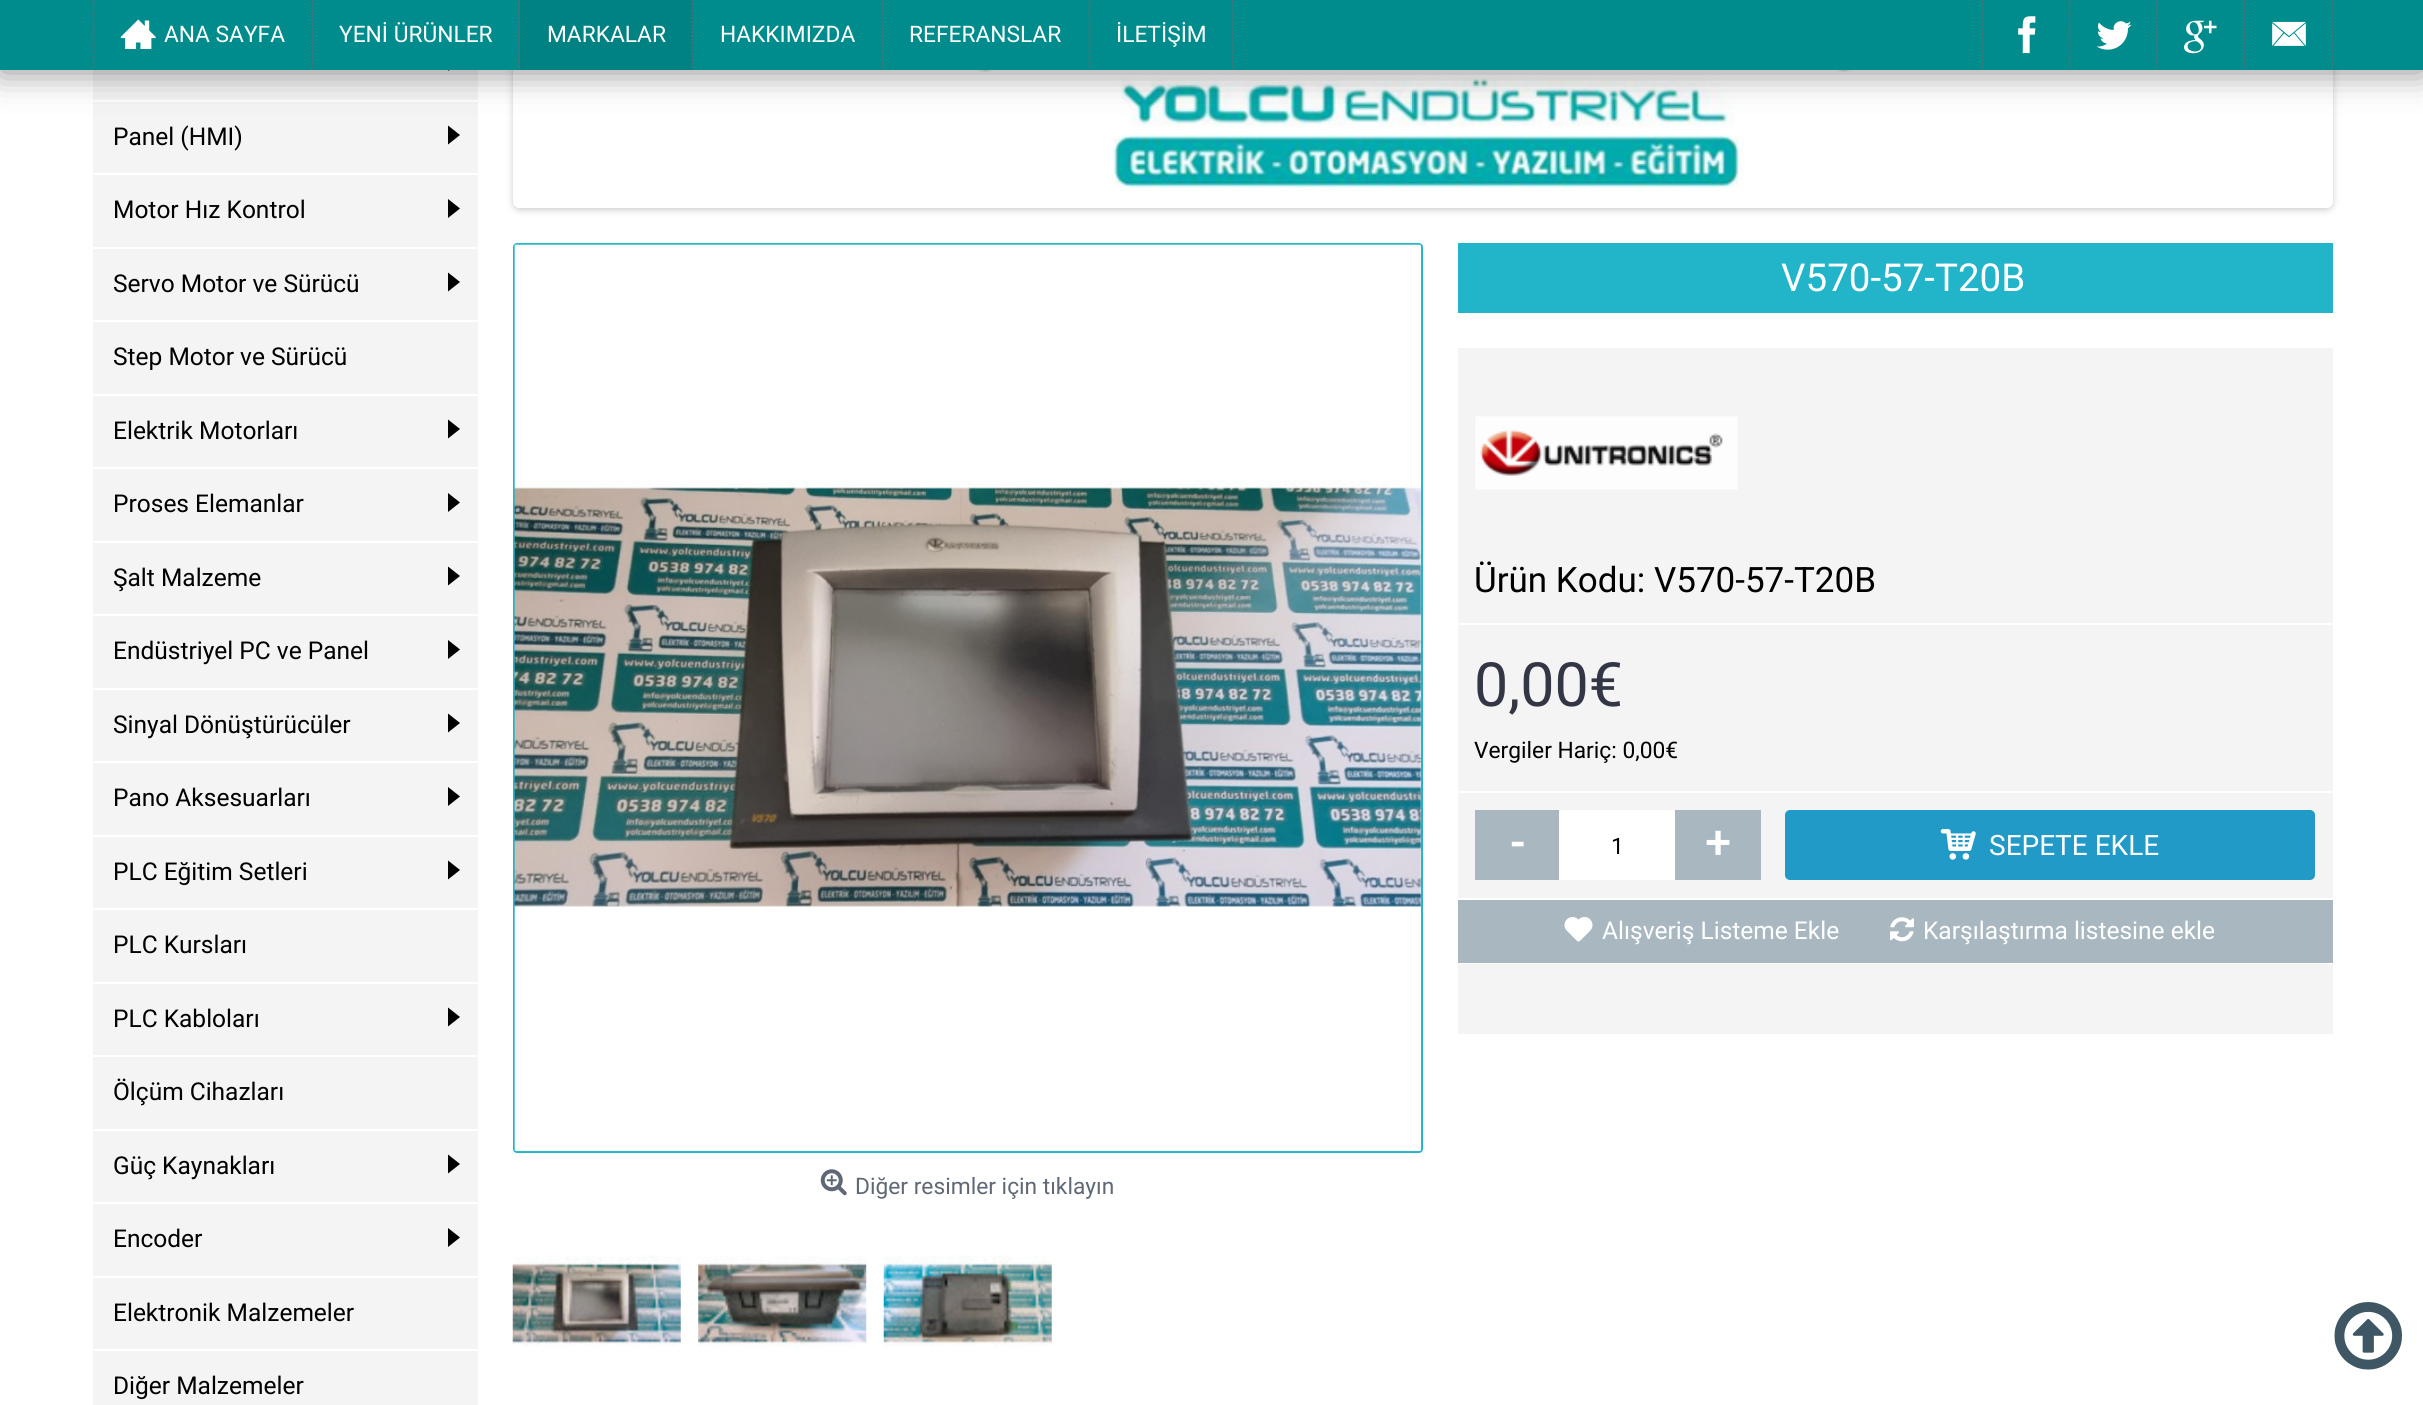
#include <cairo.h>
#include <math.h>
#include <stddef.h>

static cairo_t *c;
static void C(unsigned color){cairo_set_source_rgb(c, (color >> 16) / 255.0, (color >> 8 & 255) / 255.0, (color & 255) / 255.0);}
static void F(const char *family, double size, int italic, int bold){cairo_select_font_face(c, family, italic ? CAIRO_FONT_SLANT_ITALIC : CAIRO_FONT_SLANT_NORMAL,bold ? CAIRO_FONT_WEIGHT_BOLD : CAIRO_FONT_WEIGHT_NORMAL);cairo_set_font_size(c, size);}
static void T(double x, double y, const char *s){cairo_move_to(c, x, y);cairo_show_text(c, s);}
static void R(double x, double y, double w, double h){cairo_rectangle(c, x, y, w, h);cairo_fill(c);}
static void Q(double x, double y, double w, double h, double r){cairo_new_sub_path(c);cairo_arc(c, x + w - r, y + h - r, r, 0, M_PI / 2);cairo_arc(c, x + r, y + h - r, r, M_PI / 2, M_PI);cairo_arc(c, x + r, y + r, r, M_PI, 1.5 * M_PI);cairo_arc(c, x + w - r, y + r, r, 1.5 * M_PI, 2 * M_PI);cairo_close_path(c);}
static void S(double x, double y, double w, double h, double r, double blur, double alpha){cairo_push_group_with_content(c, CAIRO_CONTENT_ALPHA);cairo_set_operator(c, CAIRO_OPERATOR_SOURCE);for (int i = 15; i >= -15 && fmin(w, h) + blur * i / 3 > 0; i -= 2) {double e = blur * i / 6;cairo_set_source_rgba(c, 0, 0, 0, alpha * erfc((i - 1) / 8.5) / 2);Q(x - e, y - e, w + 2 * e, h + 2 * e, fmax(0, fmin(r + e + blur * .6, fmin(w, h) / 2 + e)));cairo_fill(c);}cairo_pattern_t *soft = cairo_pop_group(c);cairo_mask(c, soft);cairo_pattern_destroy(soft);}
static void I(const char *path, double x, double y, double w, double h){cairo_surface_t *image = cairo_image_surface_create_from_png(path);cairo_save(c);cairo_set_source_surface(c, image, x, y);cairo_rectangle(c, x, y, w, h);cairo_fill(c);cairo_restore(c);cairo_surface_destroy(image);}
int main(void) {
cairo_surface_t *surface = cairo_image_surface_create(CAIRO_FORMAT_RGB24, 2423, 1405);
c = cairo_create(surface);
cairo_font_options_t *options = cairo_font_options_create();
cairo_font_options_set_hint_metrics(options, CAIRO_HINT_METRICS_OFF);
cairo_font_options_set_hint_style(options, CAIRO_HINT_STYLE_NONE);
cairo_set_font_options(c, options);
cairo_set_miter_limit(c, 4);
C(0xffffff);
cairo_paint(c);
C(0xf4f4f4);
R(93,70,385,1335);
C(0xffffff);
R(93,100,385,2);
C(0x000000);
cairo_new_path(c);
cairo_move_to(c,448,52);
cairo_line_to(c,448,71);
cairo_line_to(c,460,61.5);
cairo_close_path(c);
cairo_fill(c);
cairo_new_path(c);
cairo_move_to(c,448,125.5);
cairo_line_to(c,448,144.5);
cairo_line_to(c,460,135);
cairo_close_path(c);
cairo_fill(c);
cairo_save(c);
cairo_set_fill_rule(c,CAIRO_FILL_RULE_EVEN_ODD);
cairo_new_path(c);
cairo_move_to(c,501,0);
cairo_line_to(c,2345,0);
cairo_line_to(c,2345,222);
cairo_line_to(c,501,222);
cairo_close_path(c);
cairo_move_to(c,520,-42);
cairo_line_to(c,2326,-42);
cairo_curve_to(c,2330,-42,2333,-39,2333,-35);
cairo_line_to(c,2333,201);
cairo_curve_to(c,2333,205,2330,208,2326,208);
cairo_line_to(c,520,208);
cairo_curve_to(c,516,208,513,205,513,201);
cairo_line_to(c,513,-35);
cairo_curve_to(c,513,-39,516,-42,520,-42);
cairo_close_path(c);
cairo_clip(c);
C(0x000000);
S(513,-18,1820,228,7,3.5,.2);
cairo_restore(c);
Q(516.5,-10.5,1813,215,3.5);
C(0xffffff);
cairo_set_line_width(c,7);
cairo_stroke(c);
I("6.png",955,70,979,118);
C(0x000000);
S(0,2,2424,70,0,17.5,.45);
C(0x008c8c);
R(0,0,2423,70);
cairo_new_path(c);
cairo_move_to(c,2332,0);
cairo_line_to(c,2332,70);
C(0x5f6874);
cairo_set_line_width(c,1.8);
cairo_set_dash(c,(double[]){1.75,1.75},2,0);
cairo_stroke(c);
cairo_new_path(c);
cairo_move_to(c,93.5,0);
cairo_line_to(c,93.5,70);
cairo_stroke(c);
cairo_new_path(c);
cairo_move_to(c,312.5,0);
cairo_line_to(c,312.5,70);
cairo_stroke(c);
I("1.png",120,19,36,30);
F("Roboto",22.75,0,0);
C(0xffffff);
T(164,42,"ANA SAYFA");
cairo_new_path(c);
cairo_move_to(c,519,0);
cairo_line_to(c,519,70);
C(0x5f6874);
cairo_stroke(c);
C(0xffffff);
T(339,42,"YENİ ÜRÜNLER");
C(0x008282);
R(520,0,173,70);
cairo_new_path(c);
cairo_move_to(c,692,0);
cairo_line_to(c,692,70);
C(0x5f6874);
cairo_stroke(c);
C(0xffffff);
T(547,42,"MARKALAR");
cairo_new_path(c);
cairo_move_to(c,883,0);
cairo_line_to(c,883,70);
C(0x5f6874);
cairo_stroke(c);
C(0xffffff);
T(720,42,"HAKKIMIZDA");
cairo_new_path(c);
cairo_move_to(c,1089.5,0);
cairo_line_to(c,1089.5,70);
C(0x5f6874);
cairo_stroke(c);
C(0xffffff);
T(909,42,"REFERANSLAR");
cairo_new_path(c);
cairo_move_to(c,1233,0);
cairo_line_to(c,1233,70);
C(0x5f6874);
cairo_stroke(c);
C(0xffffff);
T(1116,42,"İLETİŞİM");
cairo_new_path(c);
cairo_move_to(c,1982,0);
cairo_line_to(c,1982,70);
C(0x5f6874);
cairo_stroke(c);
I("2.png",2018,16,18,38);
cairo_new_path(c);
cairo_move_to(c,2069.5,0);
cairo_line_to(c,2069.5,70);
cairo_stroke(c);
I("3.png",2096,21,36,29);
cairo_new_path(c);
cairo_move_to(c,2157,0);
cairo_line_to(c,2157,70);
cairo_stroke(c);
I("4.png",2184,20,33,34);
cairo_new_path(c);
cairo_move_to(c,2244.5,0);
cairo_line_to(c,2244.5,70);
cairo_stroke(c);
I("5.png",2272,21,34,25);
C(0xffffff);
R(93,173,385,2);
F("Roboto",24.5,0,0);
C(0x000000);
T(113,145,"Panel (HMI)");
C(0xffffff);
R(93,247,385,2);
C(0x000000);
T(113,218,"Motor Hız Kontrol");
cairo_new_path(c);
cairo_move_to(c,448,199);
cairo_line_to(c,448,218);
cairo_line_to(c,460,208.5);
cairo_close_path(c);
cairo_fill(c);
C(0xffffff);
R(93,320,385,2);
C(0x000000);
T(113,292,"Servo Motor ve Sürücü");
cairo_new_path(c);
cairo_move_to(c,448,272.5);
cairo_line_to(c,448,291.5);
cairo_line_to(c,460,282);
cairo_close_path(c);
cairo_fill(c);
C(0xffffff);
R(93,394,385,2);
C(0x000000);
T(113,365,"Step Motor ve Sürücü");
C(0xffffff);
R(93,467,385,2);
C(0x000000);
T(113,439,"Elektrik Motorları");
cairo_new_path(c);
cairo_move_to(c,448,419.5);
cairo_line_to(c,448,438.5);
cairo_line_to(c,460,429);
cairo_close_path(c);
cairo_fill(c);
C(0xffffff);
R(93,541,385,2);
C(0x000000);
T(113,512,"Proses Elemanlar");
cairo_new_path(c);
cairo_move_to(c,448,493);
cairo_line_to(c,448,512);
cairo_line_to(c,460,502.5);
cairo_close_path(c);
cairo_fill(c);
C(0xffffff);
R(93,614,385,2);
C(0x000000);
T(113,586,"Şalt Malzeme");
cairo_new_path(c);
cairo_move_to(c,448,566.5);
cairo_line_to(c,448,585.5);
cairo_line_to(c,460,576);
cairo_close_path(c);
cairo_fill(c);
C(0xffffff);
R(93,688,385,2);
C(0x000000);
T(113,659,"Endüstriyel PC ve Panel");
cairo_new_path(c);
cairo_move_to(c,448,640);
cairo_line_to(c,448,659);
cairo_line_to(c,460,649.5);
cairo_close_path(c);
cairo_fill(c);
C(0xffffff);
R(93,761,385,2);
C(0x000000);
T(113,733,"Sinyal Dönüştürücüler");
cairo_new_path(c);
cairo_move_to(c,448,713.5);
cairo_line_to(c,448,732.5);
cairo_line_to(c,460,723);
cairo_close_path(c);
cairo_fill(c);
C(0xffffff);
R(93,835,385,2);
C(0x000000);
T(113,806,"Pano Aksesuarları");
cairo_new_path(c);
cairo_move_to(c,448,787);
cairo_line_to(c,448,806);
cairo_line_to(c,460,796.5);
cairo_close_path(c);
cairo_fill(c);
C(0xffffff);
R(93,908,385,2);
C(0x000000);
T(113,880,"PLC Eğitim Setleri");
cairo_new_path(c);
cairo_move_to(c,448,860.5);
cairo_line_to(c,448,879.5);
cairo_line_to(c,460,870);
cairo_close_path(c);
cairo_fill(c);
C(0xffffff);
R(93,982,385,2);
C(0x000000);
T(113,953,"PLC Kursları");
C(0xffffff);
R(93,1055,385,2);
C(0x000000);
T(113,1027,"PLC Kabloları");
cairo_new_path(c);
cairo_move_to(c,448,1007.5);
cairo_line_to(c,448,1026.5);
cairo_line_to(c,460,1017);
cairo_close_path(c);
cairo_fill(c);
C(0xffffff);
R(93,1129,385,2);
C(0x000000);
T(113,1100,"Ölçüm Cihazları");
C(0xffffff);
R(93,1202,385,2);
C(0x000000);
T(113,1174,"Güç Kaynakları");
cairo_new_path(c);
cairo_move_to(c,448,1154.5);
cairo_line_to(c,448,1173.5);
cairo_line_to(c,460,1164);
cairo_close_path(c);
cairo_fill(c);
C(0xffffff);
R(93,1276,385,2);
C(0x000000);
T(113,1247,"Encoder");
cairo_new_path(c);
cairo_move_to(c,448,1228);
cairo_line_to(c,448,1247);
cairo_line_to(c,460,1237.5);
cairo_close_path(c);
cairo_fill(c);
C(0xffffff);
R(93,1349,385,2);
C(0x000000);
T(113,1321,"Elektronik Malzemeler");
T(113,1394,"Diğer Malzemeler");
C(0x22b4c8);
R(1458,243,875,70);
F("Roboto",38.5,0,0);
C(0xffffff);
T(1781,291,"V570-57-T20B");
C(0xf4f4f4);
R(1458,348,875,275);
I("7.png",1475,416,263,74);
F("Roboto",35,0,0);
C(0x000000);
T(1474,592,"Ürün Kodu: V570-57-T20B");
C(0xf4f4f4);
R(1458,625,875,166);
F("Roboto",61,0,0);
C(0x333745);
T(1474,706,"0,00€");
F("Roboto",22.75,0,0);
C(0x000000);
T(1474,758,"Vergiler Hariç: 0,00€");
C(0xf4f4f4);
R(1458,793,875,105);
C(0xa9b8c0);
R(1475,810,84,70);
F("Roboto",44,0,1);
C(0xffffff);
T(1511,858,"-");
R(1559,810,116,70);
F("Roboto",22.75,0,0);
C(0x000000);
T(1611,854,"1");
C(0xa9b8c0);
R(1675,810,86,70);
F("Roboto",44,0,1);
C(0xffffff);
T(1705,858,"+");
C(0x229ac8);
Q(1785,810,530,70,5);
cairo_fill(c);
I("8.png",1940,829,36,31);
F("Roboto",28,0,0);
C(0xffffff);
T(1989,855,"SEPETE EKLE");
C(0xa9b8c0);
R(1458,900,875,63);
I("9.png",1564,917,29,25);
F("Roboto",24.5,0,0);
C(0xffffff);
T(1602,939,"Alışveriş Listeme Ekle");
I("10.png",1890,917,24,25);
T(1923,939,"Karşılaştırma listesine ekle");
C(0xf4f4f4);
R(1458,964,875,70);
Q(514,244,908,908,3);
C(0x22b4c8);
cairo_set_line_width(c,2);
cairo_set_dash(c,NULL,0,0);
cairo_stroke(c);
I("11.png",514,244,908,908);
I("12.png",820,1169,27,27);
F("Roboto",22.75,0,0);
C(0x5f6874);
T(855,1194,"Diğer resimler için tıklayın");
I("13.png",512,1255,169,92);
I("14.png",698,1256,169,91);
I("15.png",883,1255,169,92);
I("16.png",2334,1302,68,68);
cairo_surface_write_to_png(surface, "o.png");
cairo_font_options_destroy(options);
cairo_destroy(c);
cairo_surface_destroy(surface);
return 0;
}
